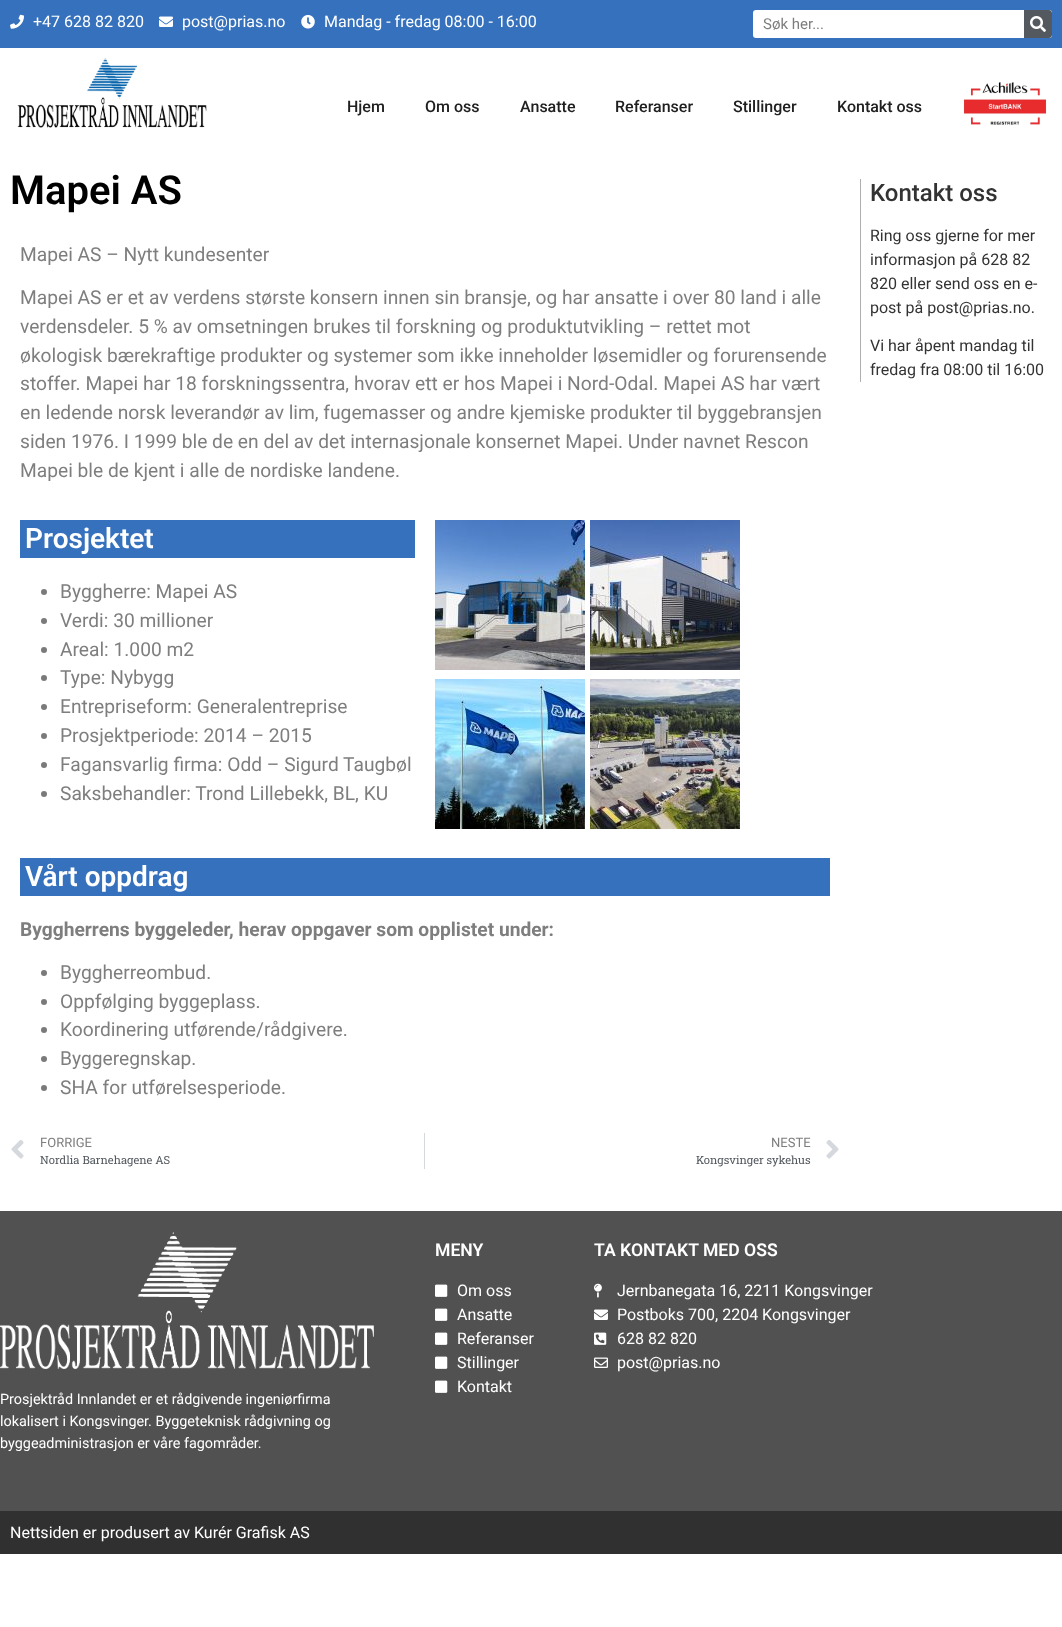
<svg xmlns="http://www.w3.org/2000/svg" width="1062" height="1627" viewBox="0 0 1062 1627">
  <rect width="100%" height="100%" fill="rgb(255,255,255)"/>
  <rect x="0" y="0" width="1062" height="48" fill="rgb(53,113,188)"/>
  <image x="10" y="14" width="14" height="15" href="pic1.png"/>
  <text x="33" y="27" font-family="Roboto" font-size="16" fill="rgb(255,255,255)">+47 628 82 820</text>
  <image x="159" y="16" width="14" height="11" href="pic2.png"/>
  <text x="182" y="27" font-family="Roboto" font-size="16" fill="rgb(255,255,255)">post@prias.no</text>
  <image x="301" y="15" width="14" height="14" href="pic3.png"/>
  <text x="324" y="27" font-family="Roboto" font-size="16" fill="rgb(255,255,255)">Mandag - fredag 08:00 - 16:00</text>
  <rect x="753" y="10" width="299" height="28" rx="3" fill="rgb(255,255,255)"/>
  <text x="763" y="29" font-family="Roboto" font-size="15" fill="rgb(126,126,126)">Søk her...</text>
  <path d="M1024 10H1049C1050.5 10 1052 11.5 1052 13V35C1052 36.5 1050.5 38 1049 38H1024Z" fill="rgb(84,89,95)"/>
  <image x="1030" y="16" width="16" height="16" href="pic4.png"/>
  <image x="17" y="58" width="190" height="70" href="pic5.png"/>
  <g font-family="Roboto" font-size="16" font-weight="500" fill="rgb(32,32,32)">
    <text x="347" y="112">Hjem</text>
    <text x="425" y="112">Om oss</text>
    <text x="520" y="112">Ansatte</text>
    <text x="615" y="112">Referanser</text>
    <text x="733" y="112">Stillinger</text>
    <text x="837" y="112">Kontakt oss</text>
  </g>
  <image x="963" y="82" width="84" height="43" href="pic6.png"/>
  <text x="10" y="204" font-family="Roboto" font-size="40" font-weight="600" fill="rgb(0,0,0)">Mapei AS</text>
  <g font-family="Roboto" font-size="19.2" fill="rgb(126,126,126)">
    <text x="20" y="261">Mapei AS – Nytt kundesenter</text>
    <text>
      <tspan x="20" y="304">Mapei AS er et av verdens største konsern innen sin bransje, og har ansatte i over 80 land i alle</tspan>
      <tspan x="20" y="333">verdensdeler. 5 % av omsetningen brukes til forskning og produktutvikling – rettet mot</tspan>
      <tspan x="20" y="362">økologisk bærekraftige produkter og systemer som ikke inneholder løsemidler og forurensende</tspan>
      <tspan x="20" y="390">stoffer. Mapei har 18 forskningssentra, hvorav ett er hos Mapei i Nord-Odal. Mapei AS har vært</tspan>
      <tspan x="20" y="419">en ledende norsk leverandør av lim, fugemasser og andre kjemiske produkter til byggebransjen</tspan>
      <tspan x="20" y="448">siden 1976. I 1999 ble de en del av det internasjonale konsernet Mapei. Under navnet Rescon</tspan>
      <tspan x="20" y="477">Mapei ble de kjent i alle de nordiske landene.</tspan>
    </text>
  </g>
  <rect x="20" y="520" width="395" height="38" fill="rgb(53,113,188)"/>
  <text x="25" y="548" font-family="Roboto" font-size="28" font-weight="600" fill="rgb(255,255,255)">Prosjektet</text>
  <circle cx="44" cy="592" r="3" fill="rgb(122,122,122)"/>
  <text x="60" y="598" font-family="Roboto" font-size="19.2" fill="rgb(126,126,126)">Byggherre: Mapei AS</text>
  <circle cx="44" cy="621" r="3" fill="rgb(122,122,122)"/>
  <text x="60" y="627" font-family="Roboto" font-size="19.2" fill="rgb(126,126,126)">Verdi: 30 millioner</text>
  <circle cx="44" cy="650" r="3" fill="rgb(122,122,122)"/>
  <text x="60" y="656" font-family="Roboto" font-size="19.2" fill="rgb(126,126,126)">Areal: 1.000 m2</text>
  <circle cx="44" cy="678" r="3" fill="rgb(122,122,122)"/>
  <text x="60" y="684" font-family="Roboto" font-size="19.2" fill="rgb(126,126,126)">Type: Nybygg</text>
  <circle cx="44" cy="707" r="3" fill="rgb(122,122,122)"/>
  <text x="60" y="713" font-family="Roboto" font-size="19.2" fill="rgb(126,126,126)">Entrepriseform: Generalentreprise</text>
  <circle cx="44" cy="736" r="3" fill="rgb(122,122,122)"/>
  <text x="60" y="742" font-family="Roboto" font-size="19.2" fill="rgb(126,126,126)">Prosjektperiode: 2014 – 2015</text>
  <circle cx="44" cy="765" r="3" fill="rgb(122,122,122)"/>
  <text x="60" y="771" font-family="Roboto" font-size="19.2" fill="rgb(126,126,126)">Fagansvarlig firma: Odd – Sigurd Taugbøl</text>
  <circle cx="44" cy="794" r="3" fill="rgb(122,122,122)"/>
  <text x="60" y="800" font-family="Roboto" font-size="19.2" fill="rgb(126,126,126)">Saksbehandler: Trond Lillebekk, BL, KU</text>
  <image x="435" y="520" width="150" height="150" href="pic7.png"/>
  <image x="590" y="520" width="150" height="150" href="pic8.png"/>
  <image x="435" y="679" width="150" height="150" href="pic9.png"/>
  <image x="590" y="679" width="150" height="150" href="pic10.png"/>
  <rect x="20" y="858" width="810" height="38" fill="rgb(53,113,188)"/>
  <text x="25" y="886" font-family="Roboto" font-size="28" font-weight="600" fill="rgb(255,255,255)">Vårt oppdrag</text>
  <text x="20" y="936" font-family="Roboto" font-size="19.2" font-weight="bold" fill="rgb(126,126,126)">Byggherrens byggeleder, herav oppgaver som opplistet under:</text>
  <circle cx="44" cy="973" r="3" fill="rgb(122,122,122)"/>
  <text x="60" y="979" font-family="Roboto" font-size="19.2" fill="rgb(126,126,126)">Byggherreombud.</text>
  <circle cx="44" cy="1002" r="3" fill="rgb(122,122,122)"/>
  <text x="60" y="1008" font-family="Roboto" font-size="19.2" fill="rgb(126,126,126)">Oppfølging byggeplass.</text>
  <circle cx="44" cy="1030" r="3" fill="rgb(122,122,122)"/>
  <text x="60" y="1036" font-family="Roboto" font-size="19.2" fill="rgb(126,126,126)">Koordinering utførende/rådgivere.</text>
  <circle cx="44" cy="1059" r="3" fill="rgb(122,122,122)"/>
  <text x="60" y="1065" font-family="Roboto" font-size="19.2" fill="rgb(126,126,126)">Byggeregnskap.</text>
  <circle cx="44" cy="1088" r="3" fill="rgb(122,122,122)"/>
  <text x="60" y="1094" font-family="Roboto" font-size="19.2" fill="rgb(126,126,126)">SHA for utførelsesperiode.</text>
  <image x="11" y="1140" width="13" height="19" href="pic11.png"/>
  <text x="40" y="1147" font-family="Roboto" font-size="13" fill="rgb(126,126,126)">FORRIGE</text>
  <text x="40" y="1164" font-family="Roboto Slab" font-size="11.25" fill="rgb(84,89,95)">Nordlia Barnehagene AS</text>
  <rect x="424" y="1133" width="1" height="36" fill="rgb(213,216,220)"/>
  <text x="771" y="1147" font-family="Roboto" font-size="13" fill="rgb(126,126,126)">NESTE</text>
  <text x="696" y="1164" font-family="Roboto Slab" font-size="11.25" fill="rgb(84,89,95)">Kongsvinger sykehus</text>
  <image x="826" y="1140" width="13" height="19" href="pic12.png"/>
  <rect x="860" y="179" width="1" height="203" fill="rgb(174,174,174)"/>
  <text x="870" y="201" font-family="Roboto" font-size="24" font-weight="500" fill="rgb(51,51,51)">Kontakt oss</text>
  <g font-family="Roboto" font-size="16" fill="rgb(51,51,51)">
    <text>
      <tspan x="870" y="241">Ring oss gjerne for mer</tspan>
      <tspan x="870" y="265">informasjon på 628 82</tspan>
      <tspan x="870" y="289">820 eller send oss en e-</tspan>
      <tspan x="870" y="313">post på post@prias.no.</tspan>
    </text>
    <text>
      <tspan x="870" y="351">Vi har åpent mandag til</tspan>
      <tspan x="870" y="375">fredag fra 08:00 til 16:00</tspan>
    </text>
  </g>
  <rect x="0" y="1211" width="1062" height="300" fill="rgb(81,81,81)"/>
  <text x="435" y="1256" font-family="Roboto" font-size="17.6" font-weight="600" fill="rgb(255,255,255)">MENY</text>
  <image x="435" y="1284" width="13" height="13" href="pic13.png"/>
  <text x="457" y="1296" font-family="Roboto" font-size="16" fill="rgb(255,255,255)">Om oss</text>
  <image x="435" y="1308" width="13" height="13" href="pic13.png"/>
  <text x="457" y="1320" font-family="Roboto" font-size="16" fill="rgb(255,255,255)">Ansatte</text>
  <image x="435" y="1332" width="13" height="13" href="pic13.png"/>
  <text x="457" y="1344" font-family="Roboto" font-size="16" fill="rgb(255,255,255)">Referanser</text>
  <image x="435" y="1356" width="13" height="13" href="pic13.png"/>
  <text x="457" y="1368" font-family="Roboto" font-size="16" fill="rgb(255,255,255)">Stillinger</text>
  <image x="435" y="1380" width="13" height="13" href="pic13.png"/>
  <text x="457" y="1392" font-family="Roboto" font-size="16" fill="rgb(255,255,255)">Kontakt</text>
  <text x="594" y="1256" font-family="Roboto" font-size="17.6" font-weight="600" fill="rgb(255,255,255)">TA KONTAKT MED OSS</text>
  <image x="594" y="1283" width="8" height="15" href="pic14.png"/>
  <text x="617" y="1296" font-family="Roboto" font-size="16" fill="rgb(255,255,255)">Jernbanegata 16, 2211 Kongsvinger</text>
  <image x="594" y="1309" width="14" height="11" href="pic15.png"/>
  <text x="617" y="1320" font-family="Roboto" font-size="16" fill="rgb(255,255,255)">Postboks 700, 2204 Kongsvinger</text>
  <image x="594" y="1332" width="13" height="13" href="pic16.png"/>
  <text x="617" y="1344" font-family="Roboto" font-size="16" fill="rgb(255,255,255)">628 82 820</text>
  <image x="594" y="1357" width="14" height="11" href="pic17.png"/>
  <text x="617" y="1368" font-family="Roboto" font-size="16" fill="rgb(255,255,255)">post@prias.no</text>
  <image x="0" y="1232" width="374" height="137" href="pic18.png"/>
  <g font-family="Roboto" font-size="14.4" fill="rgb(255,255,255)">
    <text>
      <tspan x="0" y="1404">Prosjektråd Innlandet er et rådgivende ingeniørfirma</tspan>
      <tspan x="0" y="1426">lokalisert i Kongsvinger. Byggeteknisk rådgivning og</tspan>
      <tspan x="0" y="1448">byggeadministrasjon er våre fagområder.</tspan>
    </text>
  </g>
  <rect x="0" y="1511" width="1062" height="43" fill="rgb(48,48,48)"/>
  <text x="10" y="1538" font-family="Roboto" font-size="16" fill="rgb(255,255,255)">Nettsiden er produsert av Kurér Grafisk AS</text>
</svg>
